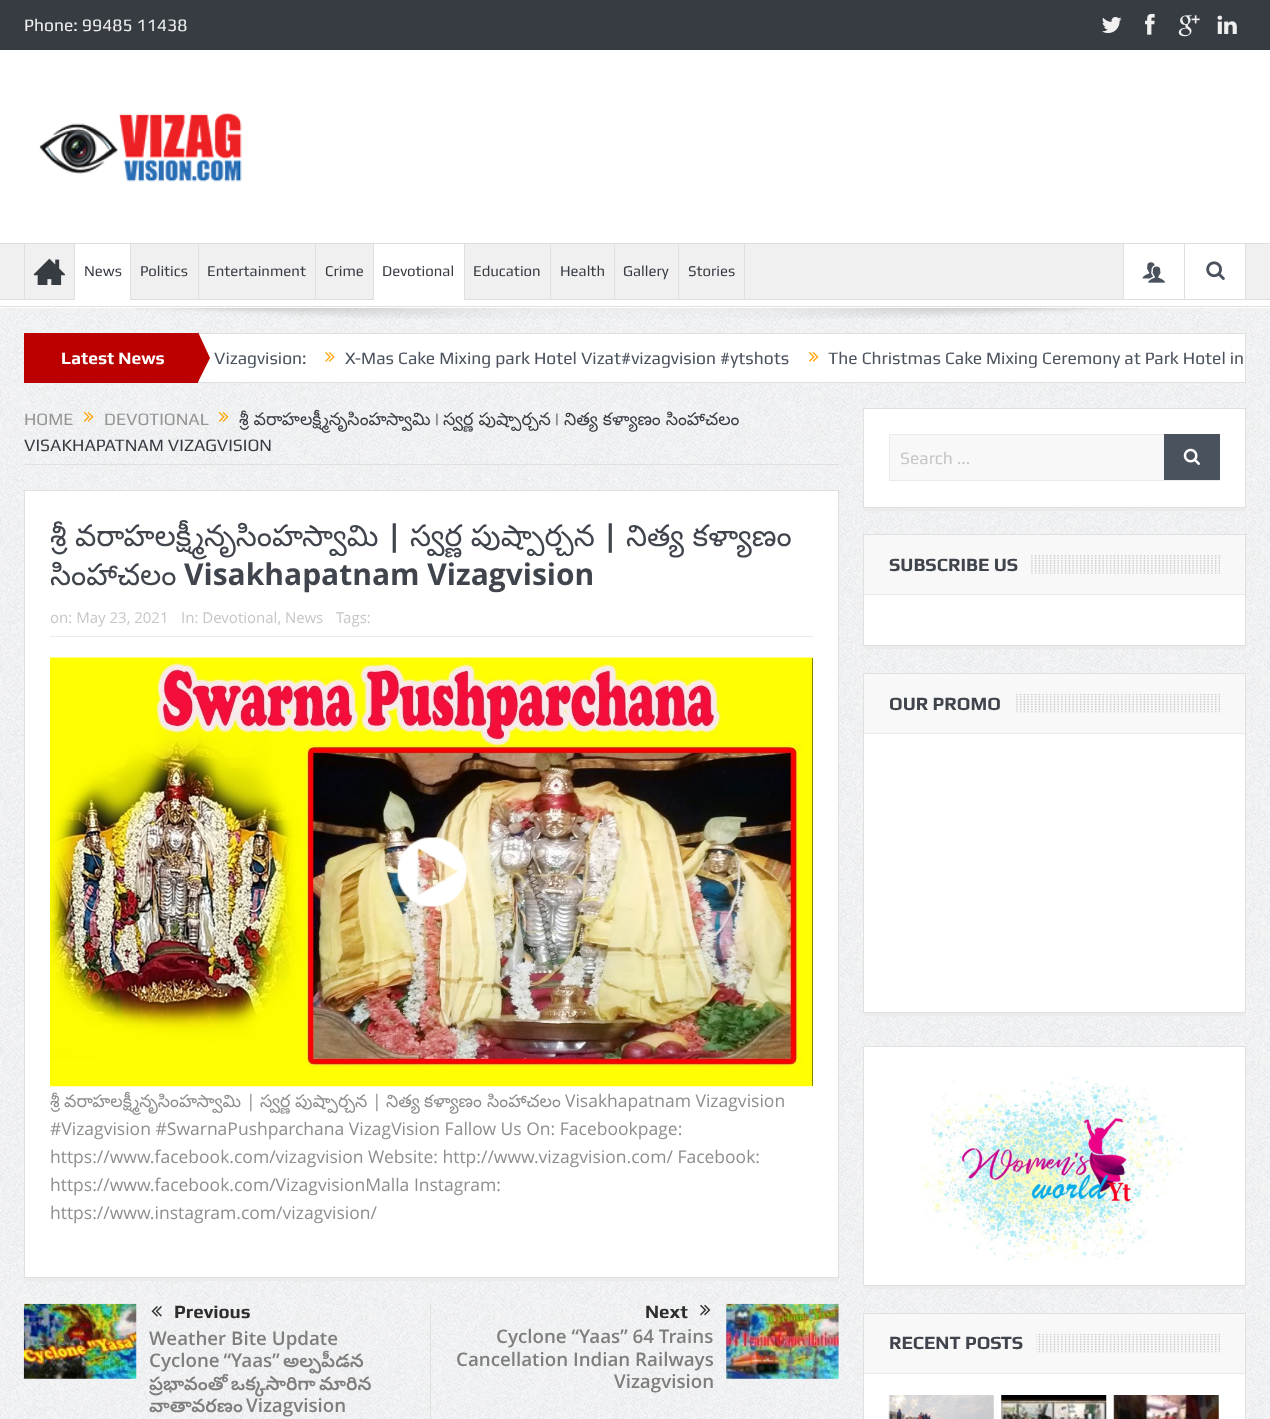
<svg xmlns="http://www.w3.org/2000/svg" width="1270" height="1419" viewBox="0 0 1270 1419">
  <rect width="100%" height="100%" fill="rgb(255,255,255)"/>
  <image x="0" y="308" width="1270" height="1111" href="pic1.png"/>
  <rect x="0" y="0" width="1270" height="50" fill="rgb(55,60,67)"/>
  <text x="24" y="31" font-family="Play" font-size="17.5" fill="rgb(240,240,240)">Phone: 99485 11438</text>
  <image x="1102" y="17" width="20" height="16" href="pic2.png"/>
  <image x="1145" y="13" width="10" height="22" href="pic3.png"/>
  <image x="1178" y="15" width="22" height="22" href="pic4.png"/>
  <image x="1217" y="15" width="20" height="19" href="pic5.png"/>
  <image x="39" y="113" width="203" height="69" href="pic6.png"/>
  <rect x="0" y="243" width="1270" height="1" fill="rgb(223,223,223)"/>
  <rect x="0" y="306" width="1270" height="1" fill="rgb(223,223,223)"/>
  <rect x="0" y="244" width="1270" height="55" fill="rgb(240,240,240)"/>
  <rect x="0" y="299" width="1270" height="1" fill="rgb(223,223,223)"/>
  <rect x="24" y="244" width="1" height="55" fill="rgb(223,223,223)"/>
  <image x="33" y="258" width="32" height="27" href="pic7.png"/>
  <rect x="74" y="244" width="1" height="55" fill="rgb(223,223,223)"/>
  <rect x="75" y="244" width="55" height="56" fill="rgb(255,255,255)"/>
  <text x="84" y="276" font-family="Play" font-size="15" fill="rgb(55,60,67)">News</text>
  <rect x="130" y="244" width="1" height="55" fill="rgb(223,223,223)"/>
  <text x="140" y="276" font-family="Play" font-size="15" fill="rgb(55,60,67)">Politics</text>
  <rect x="198" y="244" width="1" height="55" fill="rgb(223,223,223)"/>
  <text x="207" y="276" font-family="Play" font-size="15" fill="rgb(55,60,67)">Entertainment</text>
  <rect x="315" y="244" width="1" height="55" fill="rgb(223,223,223)"/>
  <text x="325" y="276" font-family="Play" font-size="15" fill="rgb(55,60,67)">Crime</text>
  <rect x="373" y="244" width="1" height="55" fill="rgb(223,223,223)"/>
  <rect x="374" y="244" width="90" height="56" fill="rgb(255,255,255)"/>
  <text x="382" y="276" font-family="Play" font-size="15" fill="rgb(55,60,67)">Devotional</text>
  <rect x="464" y="244" width="1" height="55" fill="rgb(223,223,223)"/>
  <text x="473" y="276" font-family="Play" font-size="15" fill="rgb(55,60,67)">Education</text>
  <rect x="550" y="244" width="1" height="55" fill="rgb(223,223,223)"/>
  <text x="560" y="276" font-family="Play" font-size="15" fill="rgb(55,60,67)">Health</text>
  <rect x="614" y="244" width="1" height="55" fill="rgb(223,223,223)"/>
  <text x="623" y="276" font-family="Play" font-size="15" fill="rgb(55,60,67)">Gallery</text>
  <rect x="744" y="244" width="1" height="55" fill="rgb(223,223,223)"/>
  <rect x="678" y="244" width="1" height="55" fill="rgb(223,223,223)"/>
  <text x="688" y="276" font-family="Play" font-size="15" fill="rgb(55,60,67)">Stories</text>
  <rect x="1124" y="244" width="60" height="55" fill="rgb(255,255,255)"/>
  <rect x="1184" y="244" width="1" height="55" fill="rgb(223,223,223)"/>
  <rect x="1123" y="244" width="1" height="55" fill="rgb(223,223,223)"/>
  <image x="1142" y="262" width="23" height="21" href="pic8.png"/>
  <rect x="1185" y="244" width="60" height="55" fill="rgb(255,255,255)"/>
  <rect x="1245" y="244" width="1" height="55" fill="rgb(223,223,223)"/>
  <image x="1206" y="261" width="19" height="19" href="pic9.png"/>
  <image x="136" y="308" width="1002" height="11" href="pic10.png"/>
  <rect x="24" y="333" width="174" height="50" fill="rgb(187,0,0)"/>
  <text x="61" y="364" font-family="Play" font-size="17.5" font-weight="bold" fill="rgb(255,255,255)">Latest News</text>
  <rect x="198.5" y="333.5" width="1047" height="49" fill="rgb(255,255,255)" stroke="rgb(223,223,223)"/>
  <path d="M198 382V332L210 358Z" fill="rgb(187,0,0)"/>
  <text x="214" y="364" font-family="Play" font-size="17.5" fill="rgb(74,82,93)">Vizagvision:</text>
  <image x="325" y="352" width="10" height="10" href="pic11.png"/>
  <text x="345" y="364" font-family="Play" font-size="17.5" fill="rgb(74,82,93)">X-Mas Cake Mixing park Hotel Vizat#vizagvision #ytshots</text>
  <image x="808" y="352" width="11" height="10" href="pic12.png"/>
  <text x="828" y="364" font-family="Play" font-size="17.5" fill="rgb(74,82,93)">The Christmas Cake Mixing Ceremony at Park Hotel in</text>
  <rect x="24" y="464" width="815" height="1" fill="rgb(224,224,224)"/>
  <text x="24" y="425" font-family="Play" font-size="17.5" fill="rgb(149,149,149)">HOME</text>
  <image x="83" y="412" width="11" height="10" href="pic13.png"/>
  <text x="104" y="425" font-family="Play" font-size="17.5" fill="rgb(149,149,149)">DEVOTIONAL</text>
  <image x="218" y="412" width="11" height="10" href="pic14.png"/>
  <text x="239" y="425" font-family="Noto Sans Telugu" font-size="17.5" fill="rgb(55,60,67)">శ్రీ వరాహలక్ష్మీనృసింహస్వామి</text>
  <text x="434" y="425" font-family="Play" font-size="17.5" fill="rgb(55,60,67)">|</text>
  <text x="443" y="425" font-family="Noto Sans Telugu" font-size="17.5" fill="rgb(55,60,67)">స్వర్ణ పుష్పార్చన</text>
  <text x="554" y="425" font-family="Play" font-size="17.5" fill="rgb(55,60,67)">|</text>
  <text x="564" y="425" font-family="Noto Sans Telugu" font-size="17.5" fill="rgb(55,60,67)">నిత్య కళ్యాణం సింహాచలం</text>
  <text x="24" y="451" font-family="Play" font-size="17.5" fill="rgb(55,60,67)">VISAKHAPATNAM VIZAGVISION</text>
  <rect x="24.5" y="490.5" width="814" height="787" fill="rgb(255,255,255)" stroke="rgb(224,224,224)"/>
  <text x="50" y="546" font-family="Noto Sans Telugu" font-size="30" fill="rgb(64,69,77)">శ్రీ వరాహలక్ష్మీనృసింహస్వామి</text>
  <text x="386" y="546" font-family="Open Sans" font-size="30" font-weight="bold" fill="rgb(64,69,77)">|</text>
  <text x="410" y="546" font-family="Noto Sans Telugu" font-size="30" fill="rgb(64,69,77)">స్వర్ణ పుష్పార్చన</text>
  <text x="602" y="546" font-family="Open Sans" font-size="30" font-weight="bold" fill="rgb(64,69,77)">|</text>
  <g font-family="Noto Sans Telugu" font-size="30" fill="rgb(64,69,77)">
    <text x="626" y="546">నిత్య కళ్యాణం</text>
    <text x="50" y="585">సింహాచలం</text>
  </g>
  <text x="184" y="585" font-family="Open Sans" font-size="30" font-weight="bold" fill="rgb(64,69,77)">Visakhapatnam Vizagvision</text>
  <rect x="50" y="636" width="763" height="1" fill="rgb(234,234,234)"/>
  <g font-family="Open Sans" font-size="15" fill="rgb(198,198,198)">
    <text x="50" y="623">on: May 23, 2021</text>
    <text x="181" y="623">In: Devotional, News</text>
    <text x="336" y="623">Tags:</text>
  </g>
  <rect x="812" y="658" width="1" height="428" fill="rgb(0,0,0)"/>
  <image x="50" y="657" width="763" height="430" href="pic15.png"/>
  <image x="397" y="837" width="71" height="71" href="pic16.png"/>
  <g font-family="Noto Sans Telugu" font-size="17.5" fill="rgb(142,142,142)">
    <text x="50" y="1107">శ్రీ</text>
    <text x="64" y="1107">వరాహలక్ష్మీనృసింహస్వామి</text>
  </g>
  <text x="246" y="1107" font-family="Open Sans" font-size="17.5" fill="rgb(142,142,142)">|</text>
  <g font-family="Noto Sans Telugu" font-size="17.5" fill="rgb(142,142,142)">
    <text x="260" y="1107">స్వర్ణ</text>
    <text x="295" y="1107">పుష్పార్చన</text>
  </g>
  <text x="372" y="1107" font-family="Open Sans" font-size="17.5" fill="rgb(142,142,142)">|</text>
  <g font-family="Noto Sans Telugu" font-size="17.5" fill="rgb(142,142,142)">
    <text x="386" y="1107">నిత్య</text>
    <text x="424" y="1107">కళ్యాణం</text>
    <text x="487" y="1107">సింహాచలం</text>
  </g>
  <g font-family="Open Sans" font-size="17.5" fill="rgb(142,142,142)">
    <text x="565" y="1107">Visakhapatnam Vizagvision</text>
    <text>
      <tspan x="50" y="1135">#Vizagvision #SwarnaPushparchana VizagVision Fallow Us On: Facebookpage:</tspan>
      <tspan x="50" y="1163">https://www.facebook.com/vizagvision Website: http://www.vizagvision.com/ Facebook:</tspan>
      <tspan x="50" y="1191">https://www.facebook.com/VizagvisionMalla Instagram:</tspan>
      <tspan x="50" y="1219">https://www.instagram.com/vizagvision/</tspan>
    </text>
  </g>
  <rect x="25" y="1278" width="813" height="3" fill="rgb(235,235,235)"/>
  <image x="23" y="1303" width="114" height="76" href="pic17.png"/>
  <image x="151" y="1306" width="11" height="11" href="pic18.png"/>
  <text x="174" y="1318" font-family="Play" font-size="18.75" font-weight="bold" fill="rgb(45,45,45)">Previous</text>
  <g font-family="Open Sans" font-size="18.75" font-weight="600" fill="rgb(126,126,126)">
    <text>
      <tspan x="149" y="1345">Weather Bite Update</tspan>
      <tspan x="149" y="1367" word-spacing="-1">Cyclone “Yaas”</tspan>
    </text>
  </g>
  <g font-family="Noto Sans Telugu" font-size="18.75" font-weight="600" fill="rgb(126,126,126)">
    <text x="283" y="1367">అల్పపీడన</text>
    <text>
      <tspan x="149" y="1390" word-spacing="-2">ప్రభావంతో ఒక్కసారిగా మారిన</tspan>
      <tspan x="149" y="1412">వాతావరణం</tspan>
    </text>
  </g>
  <text x="246" y="1412" font-family="Open Sans" font-size="18.75" font-weight="600" fill="rgb(126,126,126)">Vizagvision</text>
  <rect x="430" y="1304" width="1" height="115" fill="rgb(224,224,224)"/>
  <text x="645" y="1318" font-family="Play" font-size="18.75" font-weight="bold" fill="rgb(45,45,45)">Next</text>
  <image x="700" y="1304" width="11" height="12" href="pic19.png"/>
  <g font-family="Open Sans" font-size="18.75" font-weight="600" fill="rgb(126,126,126)">
    <text x="496" y="1343">Cyclone “Yaas” 64 Trains</text>
    <text x="456" y="1366">Cancellation Indian Railways</text>
    <text x="614" y="1388">Vizagvision</text>
  </g>
  <image x="726" y="1303" width="113" height="76" href="pic20.png"/>
  <rect x="863.5" y="408.5" width="382" height="99" fill="rgb(255,255,255)" stroke="rgb(224,224,224)"/>
  <rect x="890" y="435" width="274" height="45" fill="rgb(248,248,248)"/>
  <rect x="889.5" y="434.5" width="330" height="46" fill="none" stroke="rgb(234,234,234)"/>
  <text x="900" y="464" font-family="Play" font-size="17.5" fill="rgb(198,198,198)">Search ...</text>
  <rect x="1164" y="434" width="56" height="46" fill="rgb(74,82,93)"/>
  <image x="1183" y="448" width="17" height="17" href="pic21.png"/>
  <rect x="864" y="508" width="381" height="3" fill="rgb(235,235,235)"/>
  <rect x="864" y="595" width="381" height="50" fill="rgb(255,255,255)"/>
  <rect x="863.5" y="534.5" width="382" height="111" fill="none" stroke="rgb(224,224,224)"/>
  <rect x="864" y="535" width="381" height="59" fill="rgb(248,248,248)"/>
  <rect x="864" y="594" width="381" height="1" fill="rgb(234,234,234)"/>
  <image x="1031" y="555" width="189" height="19" href="pic22.png"/>
  <text x="889" y="571" font-family="Play" font-size="18.75" font-weight="bold" fill="rgb(64,69,77)">SUBSCRIBE US</text>
  <rect x="864" y="646" width="381" height="3" fill="rgb(235,235,235)"/>
  <rect x="864" y="734" width="381" height="278" fill="rgb(255,255,255)"/>
  <rect x="863.5" y="673.5" width="382" height="339" fill="none" stroke="rgb(224,224,224)"/>
  <rect x="864" y="674" width="381" height="59" fill="rgb(248,248,248)"/>
  <rect x="864" y="733" width="381" height="1" fill="rgb(234,234,234)"/>
  <image x="1016" y="694" width="204" height="19" href="pic23.png"/>
  <text x="889" y="710" font-family="Play" font-size="18.75" font-weight="bold" fill="rgb(64,69,77)">OUR PROMO</text>
  <rect x="864" y="1013" width="381" height="3" fill="rgb(235,235,235)"/>
  <rect x="863.5" y="1046.5" width="382" height="239" fill="rgb(255,255,255)" stroke="rgb(224,224,224)"/>
  <image x="922" y="1076" width="265" height="184" href="pic24.png"/>
  <rect x="864" y="1286" width="381" height="3" fill="rgb(235,235,235)"/>
  <rect x="864" y="1374" width="381" height="45" fill="rgb(255,255,255)"/>
  <rect x="863.5" y="1313.5" width="382" height="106" fill="none" stroke="rgb(224,224,224)"/>
  <rect x="864" y="1314" width="381" height="59" fill="rgb(248,248,248)"/>
  <rect x="864" y="1373" width="381" height="1" fill="rgb(234,234,234)"/>
  <image x="1036" y="1334" width="184" height="19" href="pic25.png"/>
  <text x="889" y="1349" font-family="Play" font-size="18.75" font-weight="bold" fill="rgb(64,69,77)">RECENT POSTS</text>
  <image x="888" y="1395" width="106" height="24" href="pic26.png"/>
  <image x="1001" y="1395" width="106" height="24" href="pic27.png"/>
  <image x="1113" y="1395" width="106" height="24" href="pic28.png"/>
</svg>
